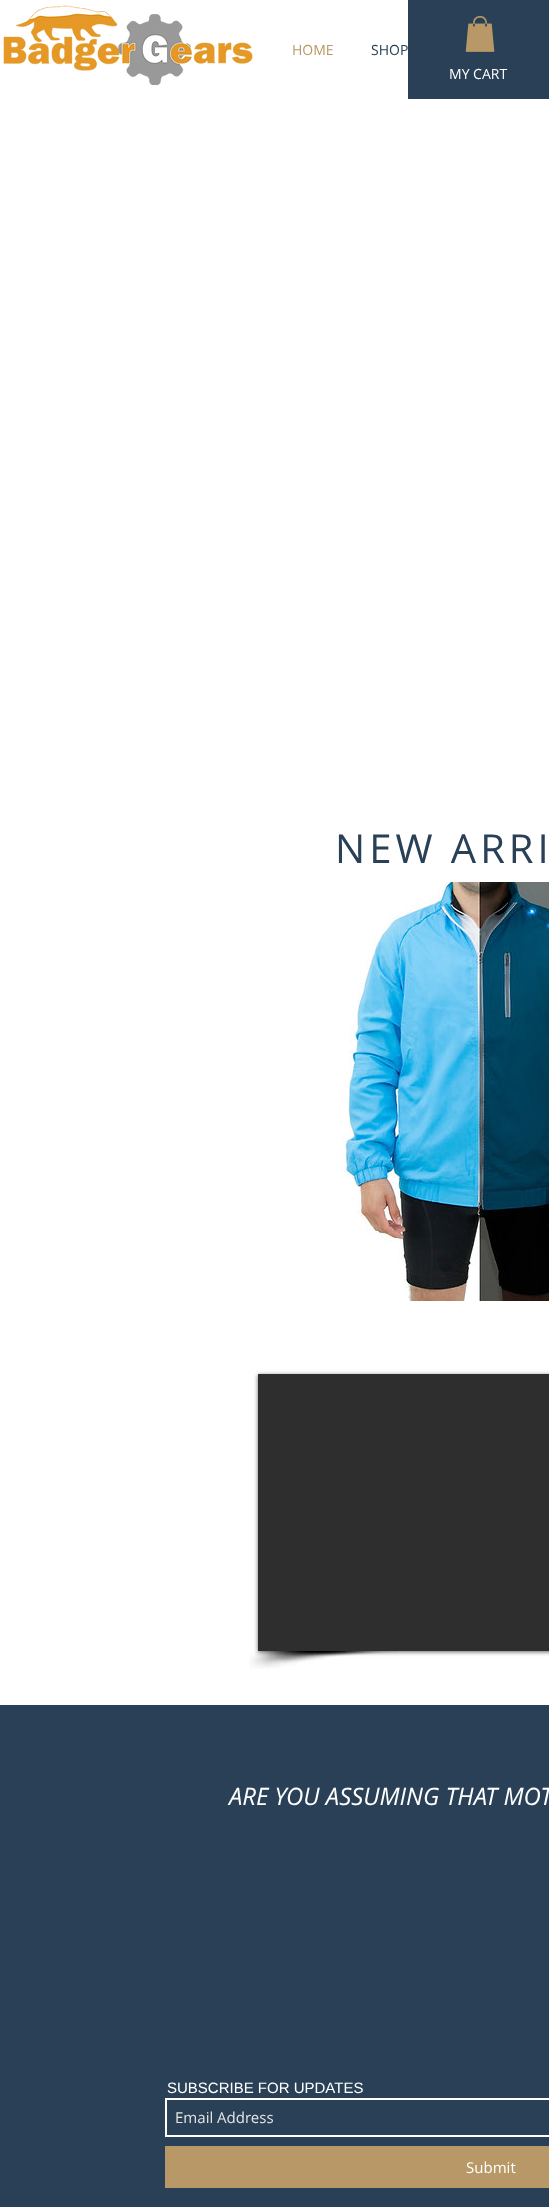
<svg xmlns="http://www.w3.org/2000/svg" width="549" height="2207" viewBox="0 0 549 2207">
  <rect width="100%" height="100%" fill="rgb(255,255,255)"/>
  <image x="3" y="5" width="250" height="80" href="pic1.png"/>
  <text x="292" y="55" font-family="Open Sans" font-size="14" fill="rgb(185,152,103)">HOME</text>
  <text x="371" y="55" font-family="Open Sans" font-size="14" fill="rgb(41,64,87)">SHOP</text>
  <rect x="408" y="0" width="141" height="99" fill="rgb(41,64,87)"/>
  <image x="465" y="16" width="30" height="36" href="pic2.png"/>
  <text x="449" y="79" font-family="Open Sans" font-size="14" fill="rgb(255,255,255)">MY CART</text>
  <text x="335" y="863" font-family="Open Sans" font-size="40" letter-spacing="4" fill="rgb(41,64,87)">NEW ARRI</text>
  <image x="341" y="882" width="208" height="419" href="pic3.png"/>
  <rect x="258" y="1375" width="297" height="277" fill="rgba(0,0,0,0.6)" filter="blur(2px)"/>
  <rect x="258" y="1374" width="291" height="277" fill="rgb(47,46,46)"/>
  <image x="249" y="1651" width="149" height="18" href="pic4.png"/>
  <rect x="0" y="1705" width="549" height="502" fill="rgb(41,64,87)"/>
  <text x="229" y="1805" font-family="Open Sans" font-size="24" font-style="italic" fill="rgb(255,255,255)">ARE YOU ASSUMING THAT MOT</text>
  <text x="167" y="2093" font-family="Liberation Sans" font-size="15" fill="rgb(255,255,255)">SUBSCRIBE FOR UPDATES</text>
  <rect x="166" y="2099" width="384" height="37" fill="none" stroke="rgb(255,255,255)" stroke-width="2"/>
  <text x="175" y="2123" font-family="Open Sans" font-size="15" fill="rgb(229,229,229)">Email Address</text>
  <rect x="165" y="2146" width="384" height="42" fill="rgb(185,152,103)"/>
  <text x="466" y="2173" font-family="Open Sans" font-size="15" fill="rgb(255,255,255)">Submit</text>
</svg>
